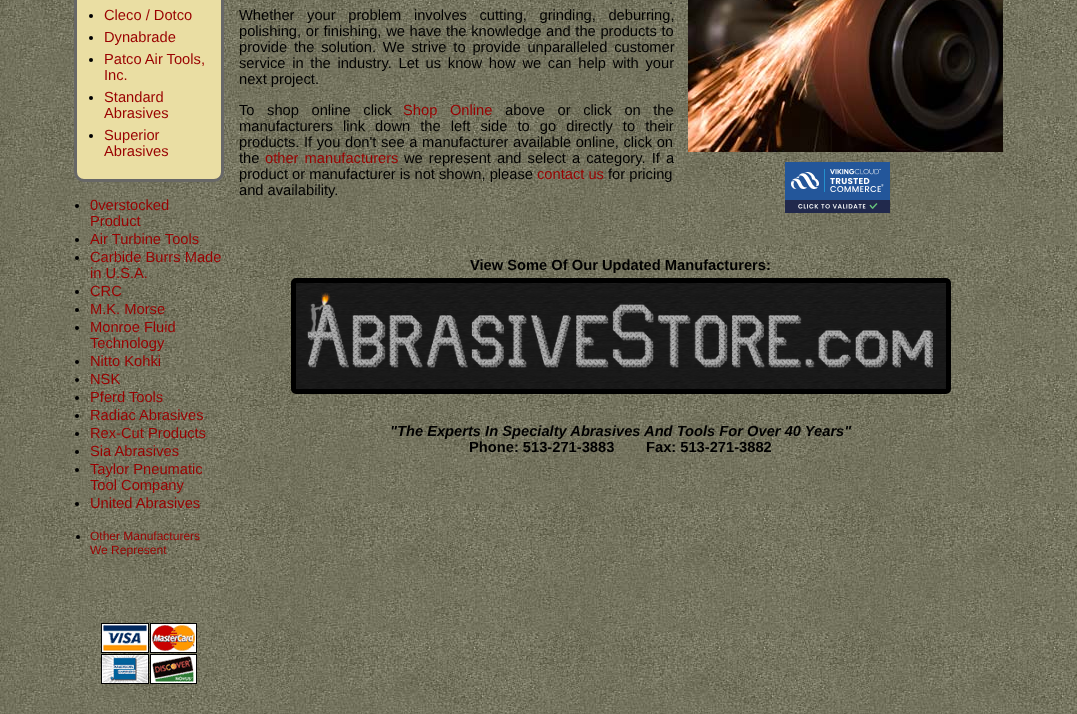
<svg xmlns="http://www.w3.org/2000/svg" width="1077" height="714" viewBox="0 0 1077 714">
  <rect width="100%" height="100%" fill="rgb(255,255,255)"/>
  <image x="0" y="0" width="1077" height="714" href="pic1.png"/>
  <rect x="75.5" y="-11.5" width="147" height="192" rx="8.5" fill="rgb(234,222,163)" stroke="rgb(103,103,103)" stroke-width="3"/>
  <circle cx="91" cy="16" r="2" fill="rgb(0,0,0)"/>
  <text x="104" y="20" font-family="Liberation Sans" font-size="14.7" fill="rgb(153,0,0)">Cleco / Dotco</text>
  <circle cx="91" cy="38" r="2" fill="rgb(0,0,0)"/>
  <text x="104" y="42" font-family="Liberation Sans" font-size="14.7" fill="rgb(153,0,0)">Dynabrade</text>
  <circle cx="91" cy="60" r="2" fill="rgb(0,0,0)"/>
  <g font-family="Liberation Sans" font-size="14.7" fill="rgb(153,0,0)">
    <text>
      <tspan x="104" y="64">Patco Air Tools,</tspan>
      <tspan x="104" y="80">Inc.</tspan>
    </text>
  </g>
  <circle cx="91" cy="98" r="2" fill="rgb(0,0,0)"/>
  <g font-family="Liberation Sans" font-size="14.7" fill="rgb(153,0,0)">
    <text>
      <tspan x="104" y="102">Standard</tspan>
      <tspan x="104" y="118">Abrasives</tspan>
    </text>
  </g>
  <circle cx="91" cy="136" r="2" fill="rgb(0,0,0)"/>
  <g font-family="Liberation Sans" font-size="14.7" fill="rgb(153,0,0)">
    <text>
      <tspan x="104" y="140">Superior</tspan>
      <tspan x="104" y="156">Abrasives</tspan>
    </text>
  </g>
  <circle cx="77" cy="206" r="2" fill="rgb(0,0,0)"/>
  <g font-family="Liberation Sans" font-size="14.7" fill="rgb(153,0,0)">
    <text>
      <tspan x="90" y="210">0verstocked</tspan>
      <tspan x="90" y="226">Product</tspan>
    </text>
  </g>
  <circle cx="77" cy="240" r="2" fill="rgb(0,0,0)"/>
  <text x="90" y="244" font-family="Liberation Sans" font-size="14.7" fill="rgb(153,0,0)">Air Turbine Tools</text>
  <circle cx="77" cy="258" r="2" fill="rgb(0,0,0)"/>
  <g font-family="Liberation Sans" font-size="14.7" fill="rgb(153,0,0)">
    <text>
      <tspan x="90" y="262">Carbide Burrs Made</tspan>
      <tspan x="90" y="278">in U.S.A.</tspan>
    </text>
  </g>
  <circle cx="77" cy="292" r="2" fill="rgb(0,0,0)"/>
  <text x="90" y="296" font-family="Liberation Sans" font-size="14.7" fill="rgb(153,0,0)">CRC</text>
  <circle cx="77" cy="310" r="2" fill="rgb(0,0,0)"/>
  <text x="90" y="314" font-family="Liberation Sans" font-size="14.7" fill="rgb(153,0,0)">M.K. Morse</text>
  <circle cx="77" cy="328" r="2" fill="rgb(0,0,0)"/>
  <g font-family="Liberation Sans" font-size="14.7" fill="rgb(153,0,0)">
    <text>
      <tspan x="90" y="332">Monroe Fluid</tspan>
      <tspan x="90" y="348">Technology</tspan>
    </text>
  </g>
  <circle cx="77" cy="362" r="2" fill="rgb(0,0,0)"/>
  <text x="90" y="366" font-family="Liberation Sans" font-size="14.7" fill="rgb(153,0,0)">Nitto Kohki</text>
  <circle cx="77" cy="380" r="2" fill="rgb(0,0,0)"/>
  <text x="90" y="384" font-family="Liberation Sans" font-size="14.7" fill="rgb(153,0,0)">NSK</text>
  <circle cx="77" cy="398" r="2" fill="rgb(0,0,0)"/>
  <text x="90" y="402" font-family="Liberation Sans" font-size="14.7" fill="rgb(153,0,0)">Pferd Tools</text>
  <circle cx="77" cy="416" r="2" fill="rgb(0,0,0)"/>
  <text x="90" y="420" font-family="Liberation Sans" font-size="14.7" fill="rgb(153,0,0)">Radiac Abrasives</text>
  <circle cx="77" cy="434" r="2" fill="rgb(0,0,0)"/>
  <text x="90" y="438" font-family="Liberation Sans" font-size="14.7" fill="rgb(153,0,0)">Rex-Cut Products</text>
  <circle cx="77" cy="452" r="2" fill="rgb(0,0,0)"/>
  <text x="90" y="456" font-family="Liberation Sans" font-size="14.7" fill="rgb(153,0,0)">Sia Abrasives</text>
  <circle cx="77" cy="470" r="2" fill="rgb(0,0,0)"/>
  <g font-family="Liberation Sans" font-size="14.7" fill="rgb(153,0,0)">
    <text>
      <tspan x="90" y="474">Taylor Pneumatic</tspan>
      <tspan x="90" y="490">Tool Company</tspan>
    </text>
  </g>
  <circle cx="77" cy="504" r="2" fill="rgb(0,0,0)"/>
  <text x="90" y="508" font-family="Liberation Sans" font-size="14.7" fill="rgb(153,0,0)">United Abrasives</text>
  <circle cx="78" cy="537" r="2" fill="rgb(0,0,0)"/>
  <g font-family="Liberation Sans" font-size="12" fill="rgb(153,0,0)">
    <text>
      <tspan x="90" y="540">Other Manufacturers</tspan>
      <tspan x="90" y="554">We Represent</tspan>
    </text>
  </g>
  <image x="101" y="623" width="96" height="61" href="pic2.png"/>
  <g font-family="Liberation Sans" font-size="14.7" fill="rgb(0,0,0)">
    <text x="669" y="4" word-spacing="6">.</text>
    <text>
      <tspan x="239" y="20" word-spacing="8.5">Whether your problem involves cutting, grinding, deburring,</tspan>
      <tspan x="239" y="36" word-spacing="0.6">polishing, or finishing, we have the knowledge and the products to</tspan>
      <tspan x="239" y="52" word-spacing="2.75">provide the solution. We strive to provide unparalleled customer</tspan>
      <tspan x="239" y="68" word-spacing="2.6">service in the industry. Let us know how we can help with your</tspan>
      <tspan x="239" y="84">next project.</tspan>
    </text>
    <text x="239" y="115" word-spacing="8.5">To shop online click</text>
  </g>
  <text x="403" y="115" word-spacing="8.5" font-family="Liberation Sans" font-size="14.7" fill="rgb(153,0,0)">Shop Online</text>
  <g font-family="Liberation Sans" font-size="14.7" fill="rgb(0,0,0)">
    <text x="505" y="115" word-spacing="8.5">above or click on the</text>
    <text>
      <tspan x="239" y="131" word-spacing="6">manufacturers link down the left side to go directly to their</tspan>
      <tspan x="239" y="147" word-spacing="0.5">products. If you don't see a manufacturer available online, click on</tspan>
      <tspan x="239" y="163">the</tspan>
    </text>
  </g>
  <text x="265" y="163" word-spacing="2" font-family="Liberation Sans" font-size="14.7" fill="rgb(153,0,0)">other manufacturers</text>
  <g font-family="Liberation Sans" font-size="14.7" fill="rgb(0,0,0)">
    <text x="404" y="163" word-spacing="2">we represent and select a category. If a</text>
    <text x="239" y="179">product or manufacturer is not shown, please</text>
  </g>
  <text x="537" y="179" font-family="Liberation Sans" font-size="14.7" fill="rgb(153,0,0)">contact us</text>
  <g font-family="Liberation Sans" font-size="14.7" fill="rgb(0,0,0)">
    <text x="608" y="179">for pricing</text>
    <text x="239" y="195">and availability.</text>
  </g>
  <image x="688" y="0" width="315" height="152" href="pic3.png"/>
  <image x="785" y="162" width="105" height="51" href="pic4.png"/>
  <text x="470" y="270" font-family="Liberation Sans" font-size="14.7" font-weight="bold" fill="rgb(0,0,0)">View Some Of Our Updated Manufacturers:</text>
  <rect x="293.5" y="280.5" width="655" height="111" rx="2.5" fill="none" stroke="rgb(0,0,0)" stroke-width="5"/>
  <image x="296" y="283" width="650" height="106" href="pic5.png"/>
  <text x="390" y="436" font-family="Liberation Sans" font-size="14.7" font-weight="bold" font-style="italic" fill="rgb(0,0,0)">"The Experts In Specialty Abrasives And Tools For Over 40 Years"</text>
  <g font-family="Liberation Sans" font-size="14.7" font-weight="bold" fill="rgb(0,0,0)">
    <text x="469" y="452">Phone: 513-271-3883</text>
    <text x="646" y="452">Fax: 513-271-3882</text>
  </g>
</svg>
